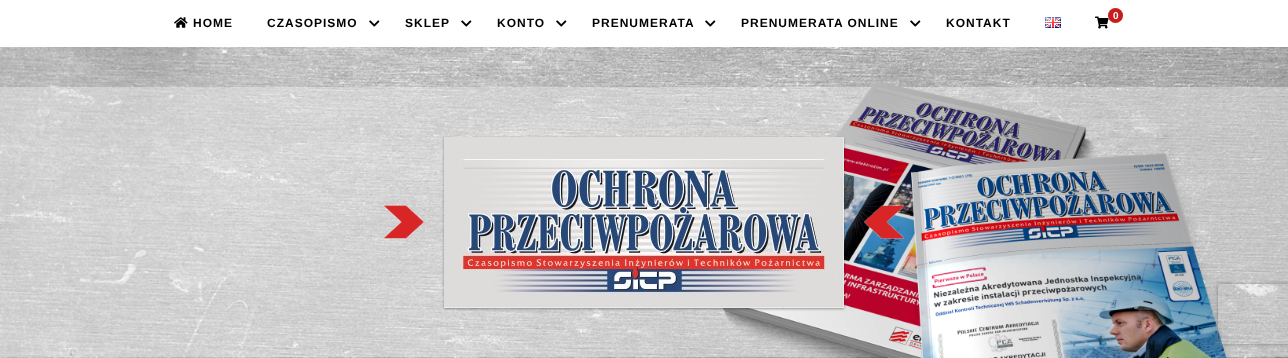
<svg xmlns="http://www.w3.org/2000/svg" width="1288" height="358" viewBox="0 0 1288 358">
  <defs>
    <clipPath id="clip1"><path d="M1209 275H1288V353H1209ZM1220 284H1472C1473 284 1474 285 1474 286V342C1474 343 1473 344 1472 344H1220C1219 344 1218 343 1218 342V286C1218 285 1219 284 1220 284Z" clip-rule="evenodd"/></clipPath>
  </defs>
  <rect width="100%" height="100%" fill="rgb(255,255,255)"/>
  <image x="1095" y="16" width="14" height="13" href="pic1.png"/>
  <circle cx="1115.5" cy="15.5" r="7.5" fill="rgb(198,29,29)"/>
  <text x="1113" y="19" font-family="Liberation Sans" font-size="10" font-weight="bold" letter-spacing="1" fill="rgb(255,255,255)">0</text>
  <image x="174" y="17" width="14" height="11" href="pic2.png"/>
  <g font-family="Liberation Sans" font-size="12" font-weight="bold" letter-spacing="1" fill="rgb(0,0,0)">
    <text x="193" y="27">HOME</text>
    <text x="267" y="27">CZASOPISMO</text>
  </g>
  <image x="369" y="20" width="11" height="7" href="pic3.png"/>
  <text x="405" y="27" font-family="Liberation Sans" font-size="12" font-weight="bold" letter-spacing="1" fill="rgb(0,0,0)">SKLEP</text>
  <image x="461" y="20" width="11" height="7" href="pic3.png"/>
  <text x="497" y="27" font-family="Liberation Sans" font-size="12" font-weight="bold" letter-spacing="1" fill="rgb(0,0,0)">KONTO</text>
  <image x="556" y="20" width="11" height="7" href="pic3.png"/>
  <text x="592" y="27" font-family="Liberation Sans" font-size="12" font-weight="bold" letter-spacing="1" fill="rgb(0,0,0)">PRENUMERATA</text>
  <image x="705" y="20" width="11" height="7" href="pic3.png"/>
  <text x="741" y="27" font-family="Liberation Sans" font-size="12" font-weight="bold" letter-spacing="1" fill="rgb(0,0,0)">PRENUMERATA ONLINE</text>
  <image x="910" y="20" width="11" height="7" href="pic3.png"/>
  <text x="946" y="27" font-family="Liberation Sans" font-size="12" font-weight="bold" letter-spacing="1" fill="rgb(0,0,0)">KONTAKT</text>
  <image x="1045" y="17" width="16" height="11" href="pic4.png"/>
  <image x="0" y="47" width="1288" height="311" href="pic5.png"/>
  <rect x="0" y="87" width="1288" height="270" fill="rgba(243,243,243,0.4)"/>
  <image x="722" y="82" width="511" height="276" href="pic6.png"/>
  <image x="384" y="205" width="40" height="34" href="pic7.png"/>
  <rect x="444" y="138" width="400" height="171" fill="rgba(0,0,0,0.24)" filter="blur(1px)"/>
  <rect x="444" y="138" width="400" height="171" fill="rgba(0,0,0,0.12)" filter="blur(1.5px)"/>
  <image x="444" y="137" width="400" height="171" href="pic8.png"/>
  <image x="864" y="205" width="40" height="34" href="pic9.png"/>
  <g clip-path="url(#clip1)">
    <rect x="1218" y="284" width="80" height="60" rx="2" fill="rgb(128,128,128)" filter="blur(2.5px)"/>
  </g>
</svg>
